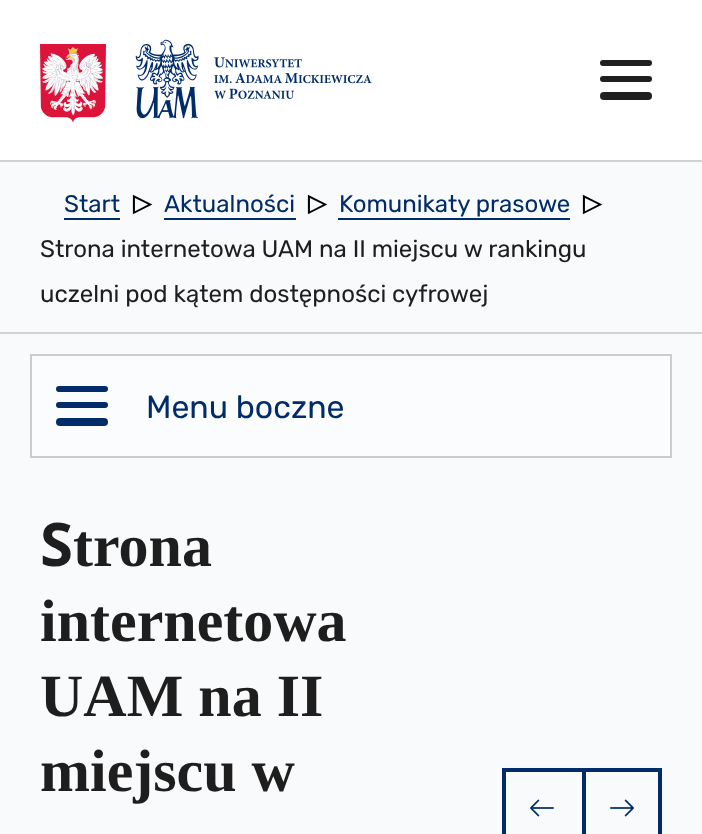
<svg xmlns="http://www.w3.org/2000/svg" width="702" height="834" viewBox="0 0 702 834">
  <rect width="100%" height="100%" fill="rgb(249,250,251)"/>
  <rect x="0" y="0" width="702" height="160" fill="rgb(255,255,255)"/>
  <image x="40" y="44" width="66" height="78" href="pic1.png"/>
  <image x="135" y="39" width="237" height="80" href="pic2.png"/>
  <rect x="600" y="76" width="52" height="6" rx="3" fill="rgb(31,31,31)"/>
  <rect x="600" y="60" width="52" height="6" rx="3" fill="rgb(31,31,31)"/>
  <rect x="600" y="92" width="52" height="8" rx="4" fill="rgb(31,31,31)"/>
  <rect x="0" y="160" width="702" height="2" fill="rgb(210,210,210)"/>
  <rect x="0" y="332" width="702" height="2" fill="rgb(210,210,210)"/>
  <text x="64" y="212" font-family="Rubik" font-size="24" fill="rgb(0,45,105)">Start</text>
  <rect x="64" y="218" width="56" height="2" fill="rgb(0,45,105)"/>
  <text x="152" y="198" transform="rotate(180 152 198)" font-family="DejaVu Sans" font-size="24" font-weight="bold" fill="rgb(0,0,0)">◁</text>
  <text x="164" y="212" font-family="Rubik" font-size="24" fill="rgb(0,45,105)">Aktualności</text>
  <rect x="164" y="218" width="132" height="2" fill="rgb(0,45,105)"/>
  <text x="327" y="198" transform="rotate(180 327 198)" font-family="DejaVu Sans" font-size="24" font-weight="bold" fill="rgb(0,0,0)">◁</text>
  <text x="339" y="212" font-family="Rubik" font-size="24" fill="rgb(0,45,105)">Komunikaty prasowe</text>
  <rect x="338" y="218" width="232" height="2" fill="rgb(0,45,105)"/>
  <text x="602" y="198" transform="rotate(180 602 198)" font-family="DejaVu Sans" font-size="24" font-weight="bold" fill="rgb(0,0,0)">◁</text>
  <g font-family="Rubik" font-size="24" fill="rgb(30,30,30)">
    <text>
      <tspan x="40" y="257">Strona internetowa UAM na II miejscu w rankingu</tspan>
      <tspan x="40" y="302">uczelni pod kątem dostępności cyfrowej</tspan>
    </text>
  </g>
  <rect x="31" y="355" width="640" height="102" fill="rgb(251,252,254)" stroke="rgb(204,204,204)" stroke-width="2"/>
  <rect x="56" y="402" width="52" height="6" rx="3" fill="rgb(0,45,105)"/>
  <rect x="56" y="386" width="52" height="6" rx="3" fill="rgb(0,45,105)"/>
  <rect x="56" y="418" width="52" height="8" rx="4" fill="rgb(0,45,105)"/>
  <text x="146" y="418" font-family="Rubik" font-size="32" fill="rgb(0,45,105)">Menu boczne</text>
  <text x="40" y="566" font-family="Noto Sans" font-size="60" font-weight="bold" fill="rgb(30,30,30)">S</text>
  <g font-family="Tinos" font-size="60" font-weight="bold" fill="rgb(30,30,30)">
    <text x="73" y="566">trona</text>
    <text>
      <tspan x="40" y="641">internetowa</tspan>
      <tspan x="40" y="716">UAM na II</tspan>
      <tspan x="40" y="791">miejscu w</tspan>
    </text>
  </g>
  <rect x="502" y="768" width="80" height="4" fill="rgb(0,45,105)"/>
  <rect x="502" y="768" width="4" height="66" fill="rgb(0,45,105)"/>
  <image x="530" y="799" width="24" height="18" href="pic3.png"/>
  <rect x="584" y="770" width="76" height="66" fill="none" stroke="rgb(0,45,105)" stroke-width="4"/>
  <image x="610" y="799" width="24" height="18" href="pic4.png"/>
</svg>
